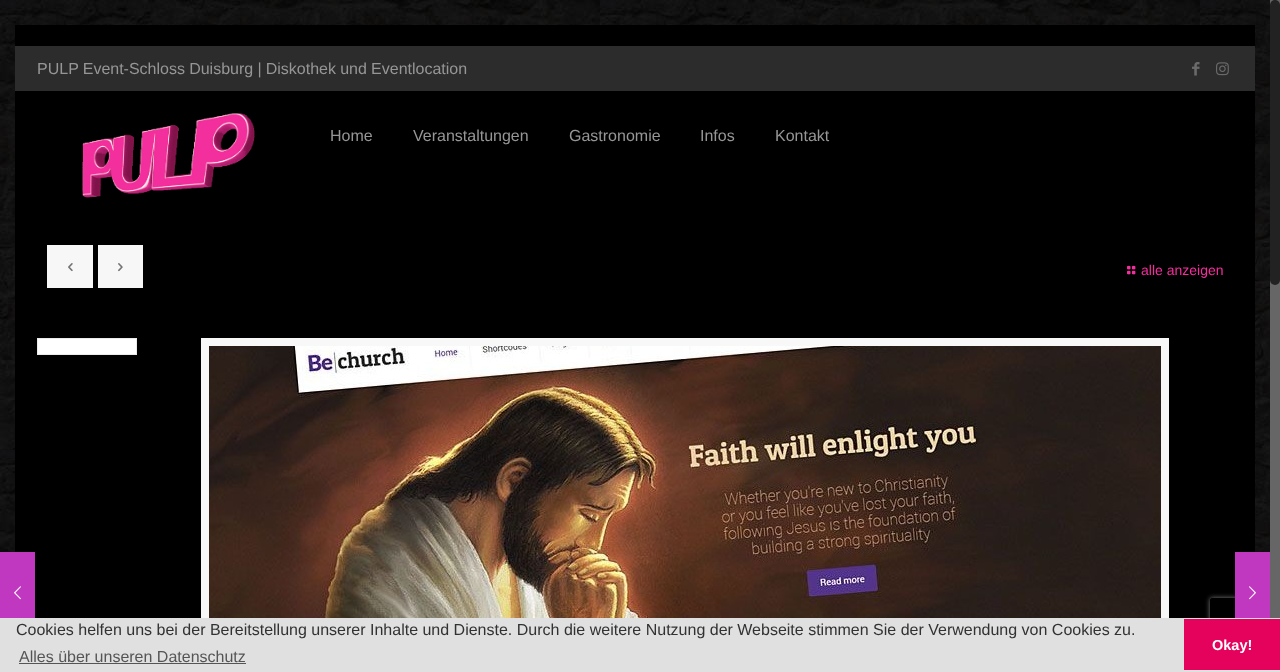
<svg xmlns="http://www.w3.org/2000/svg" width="1280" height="672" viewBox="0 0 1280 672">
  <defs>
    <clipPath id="clip1"><path d="M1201 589H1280V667H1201ZM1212 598H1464C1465 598 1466 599 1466 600V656C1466 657 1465 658 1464 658H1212C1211 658 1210 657 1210 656V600C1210 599 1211 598 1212 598Z" clip-rule="evenodd"/></clipPath>
  </defs>
  <rect width="100%" height="100%" fill="rgb(255,255,255)"/>
  <image x="0" y="0" width="1270" height="552" href="pic1.png"/>
  <rect x="15" y="25" width="1240" height="593" fill="rgb(0,0,0)"/>
  <rect x="15" y="46" width="1240" height="45" fill="rgb(44,44,44)"/>
  <text x="37" y="74" word-spacing="-0.25" font-family="Liberation Sans" font-size="16" fill="rgb(150,150,150)">PULP Event-Schloss Duisburg | Diskothek und Eventlocation</text>
  <image x="1192" y="62" width="8" height="14" href="pic2.png"/>
  <image x="1216" y="62" width="13" height="14" href="pic3.png"/>
  <image x="82" y="113" width="173" height="85" href="pic4.png"/>
  <g font-family="Liberation Sans" font-size="16" fill="rgb(150,150,150)">
    <text x="330" y="141">Home</text>
    <text x="413" y="141">Veranstaltungen</text>
    <text x="569" y="141">Gastronomie</text>
    <text x="700" y="141">Infos</text>
    <text x="775" y="141">Kontakt</text>
  </g>
  <rect x="47" y="245" width="46" height="43" fill="rgb(247,247,247)"/>
  <image x="68" y="263" width="5" height="9" href="pic5.png"/>
  <rect x="98" y="245" width="45" height="43" fill="rgb(247,247,247)"/>
  <image x="118" y="263" width="5" height="9" href="pic6.png"/>
  <image x="1127" y="265" width="9" height="10" href="pic7.png"/>
  <text x="1141" y="275" font-family="Liberation Sans" font-size="14" fill="rgb(243,46,157)">alle anzeigen</text>
  <rect x="37.5" y="338.5" width="99" height="16" fill="rgb(255,255,255)" stroke="rgb(235,235,235)"/>
  <rect x="205" y="342" width="960" height="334" fill="none" stroke="rgb(248,248,248)" stroke-width="8"/>
  <image x="209" y="346" width="952" height="272" href="pic8.png"/>
  <g clip-path="url(#clip1)">
    <rect x="1210" y="598" width="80" height="60" rx="2" fill="rgb(128,128,128)" filter="blur(2.5px)"/>
  </g>
  <rect x="1270" y="0" width="10" height="618" fill="rgb(102,102,102)"/>
  <rect x="1270" y="0" width="10" height="285" rx="5" fill="rgb(34,34,34)"/>
  <rect x="0" y="552" width="35" height="66" fill="rgb(192,56,192)"/>
  <image x="14" y="586" width="7" height="14" href="pic9.png"/>
  <rect x="1235" y="552" width="35" height="66" fill="rgb(192,56,192)"/>
  <image x="1249" y="586" width="7" height="14" href="pic10.png"/>
  <rect x="0" y="618" width="1280" height="54" fill="rgb(224,224,224)"/>
  <text x="16" y="635" font-family="Liberation Sans" font-size="16" fill="rgb(51,50,50)">Cookies helfen uns bei der Bereitstellung unserer Inhalte und Dienste. Durch die weitere Nutzung der Webseite stimmen Sie der Verwendung von Cookies zu.</text>
  <text x="19" y="662" font-family="Liberation Sans" font-size="16" fill="rgb(86,85,85)">Alles über unseren Datenschutz</text>
  <rect x="19" y="663" width="227" height="1" fill="rgb(86,85,85)"/>
  <rect x="1184" y="619" width="96" height="51" fill="rgb(229,2,93)"/>
  <text x="1212" y="650" font-family="Liberation Sans" font-size="14.5" font-weight="bold" fill="rgb(255,255,255)">Okay!</text>
</svg>
